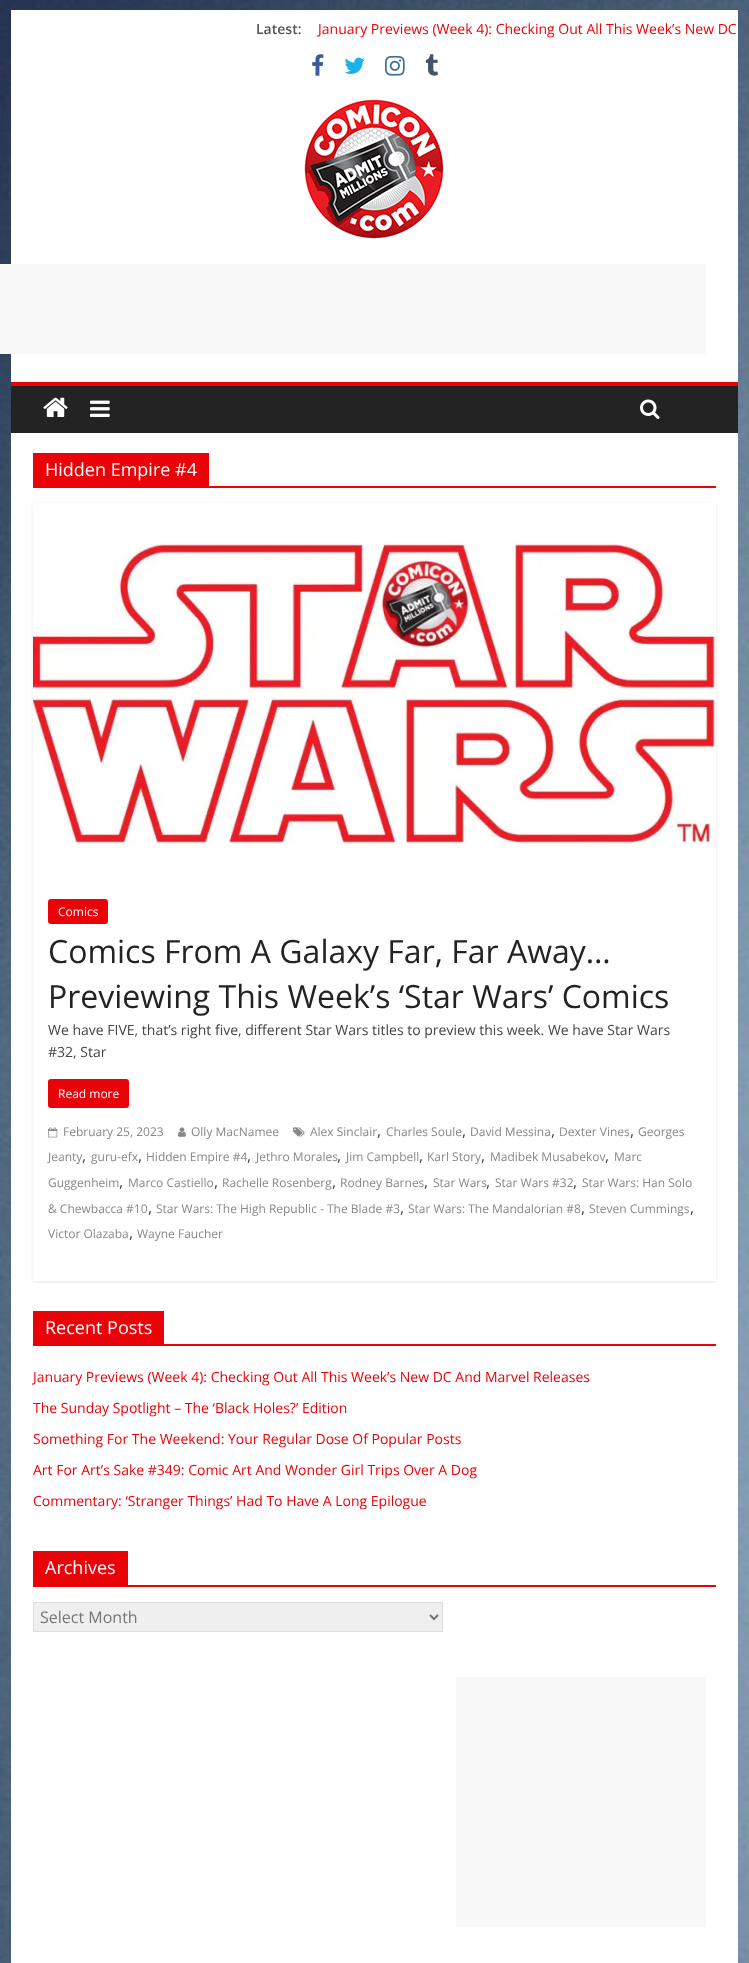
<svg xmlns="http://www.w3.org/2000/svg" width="749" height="1963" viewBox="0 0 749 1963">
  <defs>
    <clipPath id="clip1"><path d="M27 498H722V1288H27ZM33 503H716V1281H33Z" clip-rule="evenodd"/></clipPath>
  </defs>
  <rect width="100%" height="100%" fill="rgb(255,255,255)"/>
  <image x="0" y="0" width="749" height="1963" href="pic1.png"/>
  <rect x="11" y="10" width="727" height="372" fill="rgb(255,255,255)"/>
  <text x="256" y="34" font-family="Open Sans" font-size="14" font-weight="600" fill="rgb(85,85,85)">Latest:</text>
  <text x="318" y="34" font-family="Open Sans" font-size="14" fill="rgb(234,2,9)">January Previews (Week 4): Checking Out All This Week’s New DC</text>
  <image x="312" y="54" width="12" height="22" href="pic2.png"/>
  <image x="344" y="57" width="21" height="17" href="pic3.png"/>
  <image x="385" y="55" width="20" height="21" href="pic4.png"/>
  <image x="425" y="54" width="14" height="22" href="pic5.png"/>
  <image x="304" y="99" width="140" height="140" href="pic6.png"/>
  <rect x="0" y="264" width="706" height="90" fill="rgb(248,248,248)"/>
  <rect x="11" y="386" width="727" height="47" fill="rgb(35,35,35)"/>
  <rect x="11" y="382" width="727" height="4" fill="rgb(234,2,9)"/>
  <image x="43" y="397" width="25" height="20" href="pic7.png"/>
  <image x="90" y="400" width="20" height="17" href="pic8.png"/>
  <image x="640" y="399" width="20" height="20" href="pic9.png"/>
  <rect x="11" y="433" width="727" height="1530" fill="rgb(255,255,255)"/>
  <rect x="33" y="486" width="683" height="2" fill="rgb(234,2,9)"/>
  <rect x="33" y="453" width="176" height="33" fill="rgb(234,2,9)"/>
  <text x="45" y="476" font-family="Open Sans" font-size="18" fill="rgb(255,255,255)">Hidden Empire #4</text>
  <g clip-path="url(#clip1)">
    <rect x="33" y="504" width="683" height="778" fill="rgba(0,0,0,0.1)" filter="blur(1.5px)"/>
  </g>
  <image x="33" y="543" width="683" height="302" href="pic10.png"/>
  <rect x="48" y="899" width="60" height="25" rx="3" fill="rgb(234,2,9)"/>
  <text x="58" y="916" font-family="Open Sans" font-size="12" fill="rgb(255,255,255)">Comics</text>
  <g font-family="Open Sans" font-size="32" fill="rgb(35,35,35)">
    <text>
      <tspan x="48" y="963">Comics From A Galaxy Far, Far Away…</tspan>
      <tspan x="48" y="1008">Previewing This Week’s ‘Star Wars’ Comics</tspan>
    </text>
  </g>
  <g font-family="Open Sans" font-size="14" fill="rgb(68,68,68)">
    <text>
      <tspan x="48" y="1035">We have FIVE, that’s right five, different Star Wars titles to preview this week. We have Star Wars</tspan>
      <tspan x="48" y="1057">#32, Star</tspan>
    </text>
  </g>
  <rect x="48" y="1079" width="81" height="29" rx="3" fill="rgb(234,2,9)"/>
  <text x="58" y="1098" font-family="Open Sans" font-size="12" fill="rgb(255,255,255)">Read more</text>
  <image x="293" y="1127" width="12" height="10" href="pic11.png"/>
  <text x="310" y="1136" font-family="Open Sans" font-size="12" fill="rgb(136,136,136)">Alex Sinclair</text>
  <text x="377" y="1136" font-family="Open Sans" font-size="16" fill="rgb(68,68,68)">,</text>
  <text x="386" y="1136" font-family="Open Sans" font-size="12" fill="rgb(136,136,136)">Charles Soule</text>
  <text x="462" y="1136" font-family="Open Sans" font-size="16" fill="rgb(68,68,68)">,</text>
  <text x="470" y="1136" font-family="Open Sans" font-size="12" fill="rgb(136,136,136)">David Messina</text>
  <text x="551" y="1136" font-family="Open Sans" font-size="16" fill="rgb(68,68,68)">,</text>
  <text x="559" y="1136" font-family="Open Sans" font-size="12" fill="rgb(136,136,136)">Dexter Vines</text>
  <text x="630" y="1136" font-family="Open Sans" font-size="16" fill="rgb(68,68,68)">,</text>
  <g font-family="Open Sans" font-size="12" fill="rgb(136,136,136)">
    <text x="638" y="1136">Georges</text>
    <text x="48" y="1161">Jeanty</text>
  </g>
  <text x="82" y="1161" font-family="Open Sans" font-size="16" fill="rgb(68,68,68)">,</text>
  <text x="91" y="1161" font-family="Open Sans" font-size="12" fill="rgb(136,136,136)">guru-efx</text>
  <text x="138" y="1161" font-family="Open Sans" font-size="16" fill="rgb(68,68,68)">,</text>
  <text x="146" y="1161" font-family="Open Sans" font-size="12" fill="rgb(136,136,136)">Hidden Empire #4</text>
  <text x="247" y="1161" font-family="Open Sans" font-size="16" fill="rgb(68,68,68)">,</text>
  <text x="256" y="1161" font-family="Open Sans" font-size="12" fill="rgb(136,136,136)">Jethro Morales</text>
  <text x="337" y="1161" font-family="Open Sans" font-size="16" fill="rgb(68,68,68)">,</text>
  <text x="346" y="1161" font-family="Open Sans" font-size="12" fill="rgb(136,136,136)">Jim Campbell</text>
  <text x="419" y="1161" font-family="Open Sans" font-size="16" fill="rgb(68,68,68)">,</text>
  <text x="427" y="1161" font-family="Open Sans" font-size="12" fill="rgb(136,136,136)">Karl Story</text>
  <text x="481" y="1161" font-family="Open Sans" font-size="16" fill="rgb(68,68,68)">,</text>
  <text x="490" y="1161" font-family="Open Sans" font-size="12" fill="rgb(136,136,136)">Madibek Musabekov</text>
  <text x="605" y="1161" font-family="Open Sans" font-size="16" fill="rgb(68,68,68)">,</text>
  <g font-family="Open Sans" font-size="12" fill="rgb(136,136,136)">
    <text x="614" y="1161">Marc</text>
    <text x="48" y="1187">Guggenheim</text>
  </g>
  <text x="119" y="1187" font-family="Open Sans" font-size="16" fill="rgb(68,68,68)">,</text>
  <text x="128" y="1187" font-family="Open Sans" font-size="12" fill="rgb(136,136,136)">Marco Castiello</text>
  <text x="214" y="1187" font-family="Open Sans" font-size="16" fill="rgb(68,68,68)">,</text>
  <text x="222" y="1187" font-family="Open Sans" font-size="12" fill="rgb(136,136,136)">Rachelle Rosenberg</text>
  <text x="332" y="1187" font-family="Open Sans" font-size="16" fill="rgb(68,68,68)">,</text>
  <text x="340" y="1187" font-family="Open Sans" font-size="12" fill="rgb(136,136,136)">Rodney Barnes</text>
  <text x="424" y="1187" font-family="Open Sans" font-size="16" fill="rgb(68,68,68)">,</text>
  <text x="433" y="1187" font-family="Open Sans" font-size="12" fill="rgb(136,136,136)">Star Wars</text>
  <text x="486" y="1187" font-family="Open Sans" font-size="16" fill="rgb(68,68,68)">,</text>
  <text x="495" y="1187" font-family="Open Sans" font-size="12" fill="rgb(136,136,136)">Star Wars #32</text>
  <text x="573" y="1187" font-family="Open Sans" font-size="16" fill="rgb(68,68,68)">,</text>
  <g font-family="Open Sans" font-size="12" fill="rgb(136,136,136)">
    <text x="582" y="1187">Star Wars: Han Solo</text>
    <text x="48" y="1213">&amp; Chewbacca #10</text>
  </g>
  <text x="148" y="1213" font-family="Open Sans" font-size="16" fill="rgb(68,68,68)">,</text>
  <text x="156" y="1213" font-family="Open Sans" font-size="12" fill="rgb(136,136,136)">Star Wars: The High Republic - The Blade #3</text>
  <text x="400" y="1213" font-family="Open Sans" font-size="16" fill="rgb(68,68,68)">,</text>
  <text x="408" y="1213" font-family="Open Sans" font-size="12" fill="rgb(136,136,136)">Star Wars: The Mandalorian #8</text>
  <text x="581" y="1213" font-family="Open Sans" font-size="16" fill="rgb(68,68,68)">,</text>
  <text x="589" y="1213" font-family="Open Sans" font-size="12" fill="rgb(136,136,136)">Steven Cummings</text>
  <text x="690" y="1213" font-family="Open Sans" font-size="16" fill="rgb(68,68,68)">,</text>
  <text x="48" y="1238" font-family="Open Sans" font-size="12" fill="rgb(136,136,136)">Victor Olazaba</text>
  <text x="129" y="1238" font-family="Open Sans" font-size="16" fill="rgb(68,68,68)">,</text>
  <text x="137" y="1238" font-family="Open Sans" font-size="12" fill="rgb(136,136,136)">Wayne Faucher</text>
  <image x="48" y="1127" width="10" height="11" href="pic12.png"/>
  <text x="63" y="1136" font-family="Open Sans" font-size="12" fill="rgb(136,136,136)">February 25, 2023</text>
  <image x="178" y="1127" width="8" height="10" href="pic13.png"/>
  <text x="191" y="1136" font-family="Open Sans" font-size="12" fill="rgb(136,136,136)">Olly MacNamee</text>
  <rect x="33" y="1344" width="683" height="2" fill="rgb(234,2,9)"/>
  <rect x="33" y="1311" width="131" height="33" fill="rgb(234,2,9)"/>
  <text x="45" y="1334" font-family="Open Sans" font-size="18" fill="rgb(255,255,255)">Recent Posts</text>
  <g font-family="Open Sans" font-size="14" fill="rgb(234,2,9)">
    <text x="33" y="1382">January Previews (Week 4): Checking Out All This Week’s New DC And Marvel Releases</text>
    <text x="33" y="1413">The Sunday Spotlight – The ‘Black Holes?’ Edition</text>
    <text x="33" y="1444">Something For The Weekend: Your Regular Dose Of Popular Posts</text>
    <text x="33" y="1475">Art For Art’s Sake #349: Comic Art And Wonder Girl Trips Over A Dog</text>
    <text x="33" y="1506">Commentary: ‘Stranger Things’ Had To Have A Long Epilogue</text>
  </g>
  <rect x="33" y="1585" width="683" height="2" fill="rgb(234,2,9)"/>
  <rect x="33" y="1551" width="95" height="34" fill="rgb(234,2,9)"/>
  <text x="45" y="1574" font-family="Open Sans" font-size="18" fill="rgb(255,255,255)">Archives</text>
  <rect x="33.5" y="1602.5" width="409" height="29" fill="rgb(239,239,239)" stroke="rgb(221,221,221)"/>
  <path d="M430 1615L434 1619L438 1615" fill="none" stroke="rgb(119,119,119)" stroke-width="2"/>
  <text x="40" y="1623" font-family="Open Sans" font-size="16" fill="rgb(119,119,119)">Select Month</text>
  <rect x="456" y="1677" width="250" height="250" fill="rgb(248,248,248)"/>
</svg>
